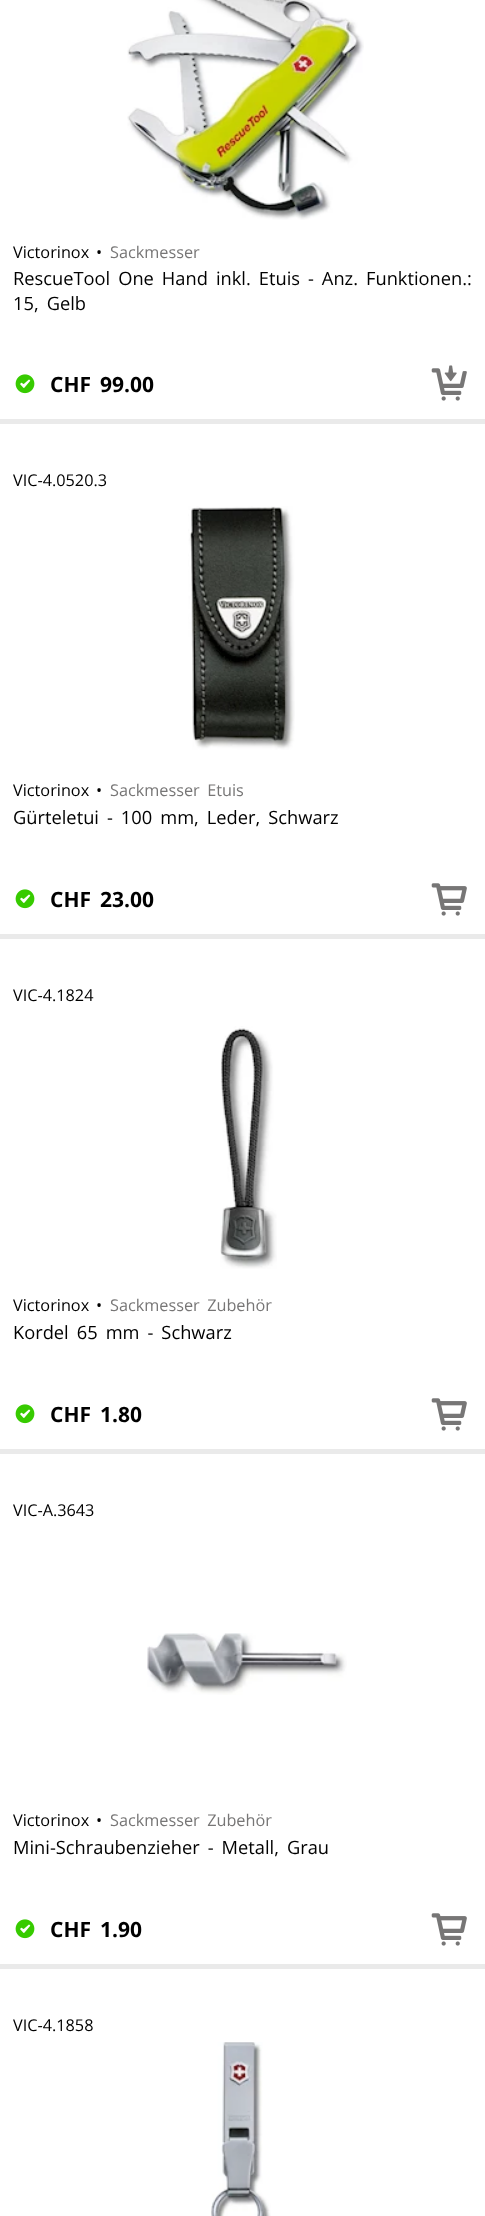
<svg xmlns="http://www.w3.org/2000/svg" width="485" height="2216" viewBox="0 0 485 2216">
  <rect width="100%" height="100%" fill="rgb(234,234,234)"/>
  <rect x="0" y="0" width="485" height="419" fill="rgb(255,255,255)"/>
  <image x="127" y="0" width="237" height="220" href="pic1.png"/>
  <g font-family="Open Sans" font-size="16.25" fill="rgb(0,0,0)">
    <text x="13" y="258">Victorinox</text>
    <text x="96" y="258">•</text>
  </g>
  <text x="110" y="258" font-family="Open Sans" font-size="16.25" fill="rgb(119,118,118)">Sackmesser</text>
  <g font-family="Open Sans" font-size="18.3" fill="rgb(0,0,0)">
    <text>
      <tspan x="13" y="285" word-spacing="3.25">RescueTool One Hand inkl. Etuis - Anz. Funktionen.:</tspan>
      <tspan x="13" y="310" word-spacing="3.25">15, Gelb</tspan>
    </text>
  </g>
  <image x="15" y="374" width="20" height="20" href="pic2.png"/>
  <g font-family="Open Sans" font-size="21" font-weight="bold" fill="rgb(0,0,0)">
    <text x="50" y="392">CHF</text>
    <text x="100" y="392">99.00</text>
  </g>
  <image x="431" y="365" width="36" height="36" href="pic3.png"/>
  <rect x="0" y="424" width="485" height="510" fill="rgb(255,255,255)"/>
  <text x="13" y="486" font-family="Open Sans" font-size="16.25" fill="rgb(0,0,0)">VIC-4.0520.3</text>
  <image x="188" y="506" width="107" height="244" href="pic4.png"/>
  <g font-family="Open Sans" font-size="16.25" fill="rgb(0,0,0)">
    <text x="13" y="796">Victorinox</text>
    <text x="96" y="796">•</text>
  </g>
  <text x="110" y="796" word-spacing="3.25" font-family="Open Sans" font-size="16.25" fill="rgb(119,118,118)">Sackmesser Etuis</text>
  <text x="13" y="824" word-spacing="3.25" font-family="Open Sans" font-size="18.3" fill="rgb(0,0,0)">Gürteletui - 100 mm, Leder, Schwarz</text>
  <image x="15" y="889" width="20" height="20" href="pic2.png"/>
  <g font-family="Open Sans" font-size="21" font-weight="bold" fill="rgb(0,0,0)">
    <text x="50" y="907">CHF</text>
    <text x="100" y="907">23.00</text>
  </g>
  <image x="431" y="883" width="36" height="33" href="pic5.png"/>
  <rect x="0" y="939" width="485" height="510" fill="rgb(255,255,255)"/>
  <text x="13" y="1001" font-family="Open Sans" font-size="16.25" fill="rgb(0,0,0)">VIC-4.1824</text>
  <image x="220" y="1026" width="57" height="243" href="pic6.png"/>
  <g font-family="Open Sans" font-size="16.25" fill="rgb(0,0,0)">
    <text x="13" y="1311">Victorinox</text>
    <text x="96" y="1311">•</text>
  </g>
  <text x="110" y="1311" word-spacing="3.25" font-family="Open Sans" font-size="16.25" fill="rgb(119,118,118)">Sackmesser Zubehör</text>
  <text x="13" y="1339" word-spacing="3.25" font-family="Open Sans" font-size="18.3" fill="rgb(0,0,0)">Kordel 65 mm - Schwarz</text>
  <image x="15" y="1404" width="20" height="20" href="pic2.png"/>
  <g font-family="Open Sans" font-size="21" font-weight="bold" fill="rgb(0,0,0)">
    <text x="50" y="1422">CHF</text>
    <text x="100" y="1422">1.80</text>
  </g>
  <image x="431" y="1398" width="36" height="33" href="pic5.png"/>
  <rect x="0" y="1454" width="485" height="510" fill="rgb(255,255,255)"/>
  <text x="13" y="1516" font-family="Open Sans" font-size="16.25" fill="rgb(0,0,0)">VIC-A.3643</text>
  <image x="147" y="1633" width="200" height="62" href="pic7.png"/>
  <g font-family="Open Sans" font-size="16.25" fill="rgb(0,0,0)">
    <text x="13" y="1826">Victorinox</text>
    <text x="96" y="1826">•</text>
  </g>
  <text x="110" y="1826" word-spacing="3.25" font-family="Open Sans" font-size="16.25" fill="rgb(119,118,118)">Sackmesser Zubehör</text>
  <text x="13" y="1854" word-spacing="3.25" font-family="Open Sans" font-size="18.3" fill="rgb(0,0,0)">Mini-Schraubenzieher - Metall, Grau</text>
  <image x="15" y="1919" width="20" height="20" href="pic2.png"/>
  <g font-family="Open Sans" font-size="21" font-weight="bold" fill="rgb(0,0,0)">
    <text x="50" y="1937">CHF</text>
    <text x="100" y="1937">1.90</text>
  </g>
  <image x="431" y="1913" width="36" height="33" href="pic5.png"/>
  <rect x="0" y="1969" width="485" height="247" fill="rgb(255,255,255)"/>
  <text x="13" y="2031" font-family="Open Sans" font-size="16.25" fill="rgb(0,0,0)">VIC-4.1858</text>
  <image x="211" y="2042" width="60" height="174" href="pic8.png"/>
</svg>
